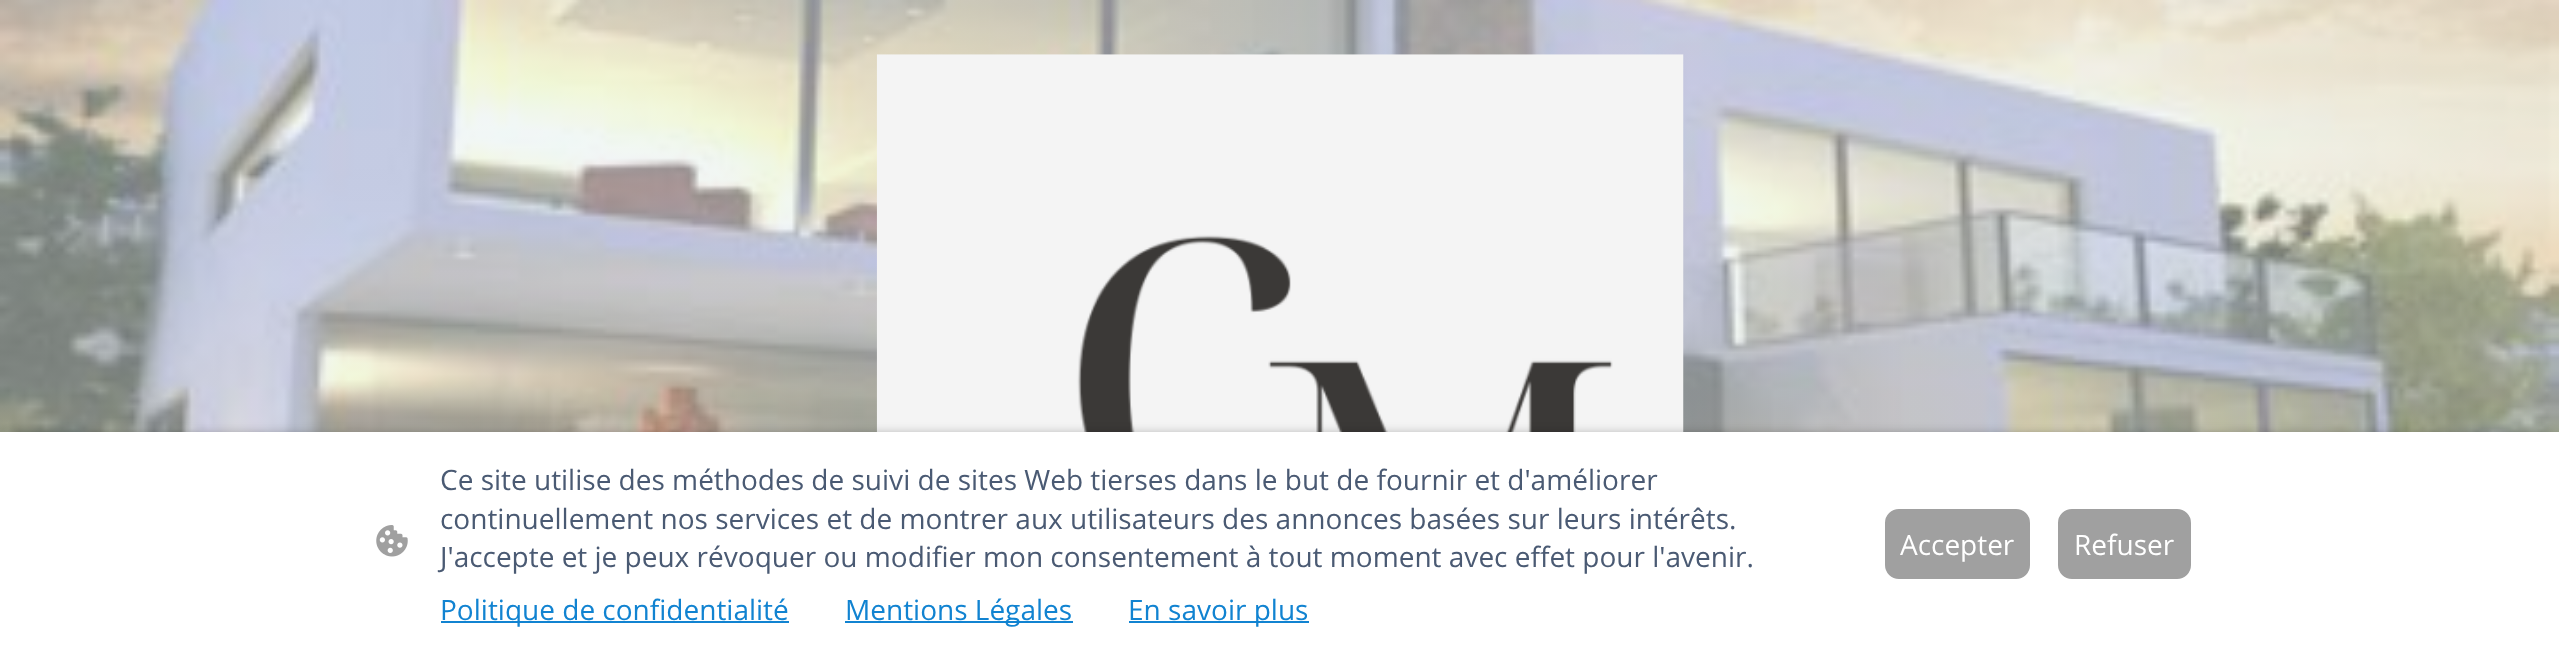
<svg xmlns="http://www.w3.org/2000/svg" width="2559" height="655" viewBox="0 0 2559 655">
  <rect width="100%" height="100%" fill="rgb(255,255,255)"/>
  <image x="0" y="0" width="2559" height="432" href="pic1.png"/>
  <image x="876" y="54" width="808" height="378" href="pic2.png"/>
  <rect x="11" y="438" width="2539" height="203" fill="rgba(0,0,0,0.63)" filter="blur(7px)"/>
  <rect x="0" y="432" width="2559" height="223" fill="rgb(255,255,255)"/>
  <image x="376" y="525" width="32" height="32" href="pic3.png"/>
  <g font-family="Open Sans" font-size="28" fill="rgb(74,90,115)">
    <text>
      <tspan x="440" y="490">Ce site utilise des méthodes de suivi de sites Web tierses dans le but de fournir et d'améliorer</tspan>
      <tspan x="440" y="529">continuellement nos services et de montrer aux utilisateurs des annonces basées sur leurs intérêts.</tspan>
      <tspan x="440" y="567">J'accepte et je peux révoquer ou modifier mon consentement à tout moment avec effet pour l'avenir.</tspan>
    </text>
  </g>
  <rect x="441" y="621" width="348" height="2" fill="rgb(17,131,209)"/>
  <text x="440" y="620" font-family="Open Sans" font-size="28" fill="rgb(17,131,209)">Politique de confidentialité</text>
  <rect x="845" y="621" width="228" height="2" fill="rgb(17,131,209)"/>
  <text x="845" y="620" font-family="Open Sans" font-size="28" fill="rgb(17,131,209)">Mentions Légales</text>
  <rect x="1129" y="621" width="180" height="2" fill="rgb(17,131,209)"/>
  <text x="1128" y="620" font-family="Open Sans" font-size="28" fill="rgb(17,131,209)">En savoir plus</text>
  <rect x="1886" y="510" width="143" height="68" rx="13" fill="rgb(160,160,160)" stroke="rgb(160,160,160)" stroke-width="2"/>
  <text x="1900" y="555" font-family="Open Sans" font-size="28" fill="rgb(255,255,255)">Accepter</text>
  <rect x="2059" y="510" width="131" height="68" rx="13" fill="rgb(160,160,160)" stroke="rgb(160,160,160)" stroke-width="2"/>
  <text x="2074" y="555" font-family="Open Sans" font-size="28" fill="rgb(255,255,255)">Refuser</text>
</svg>
